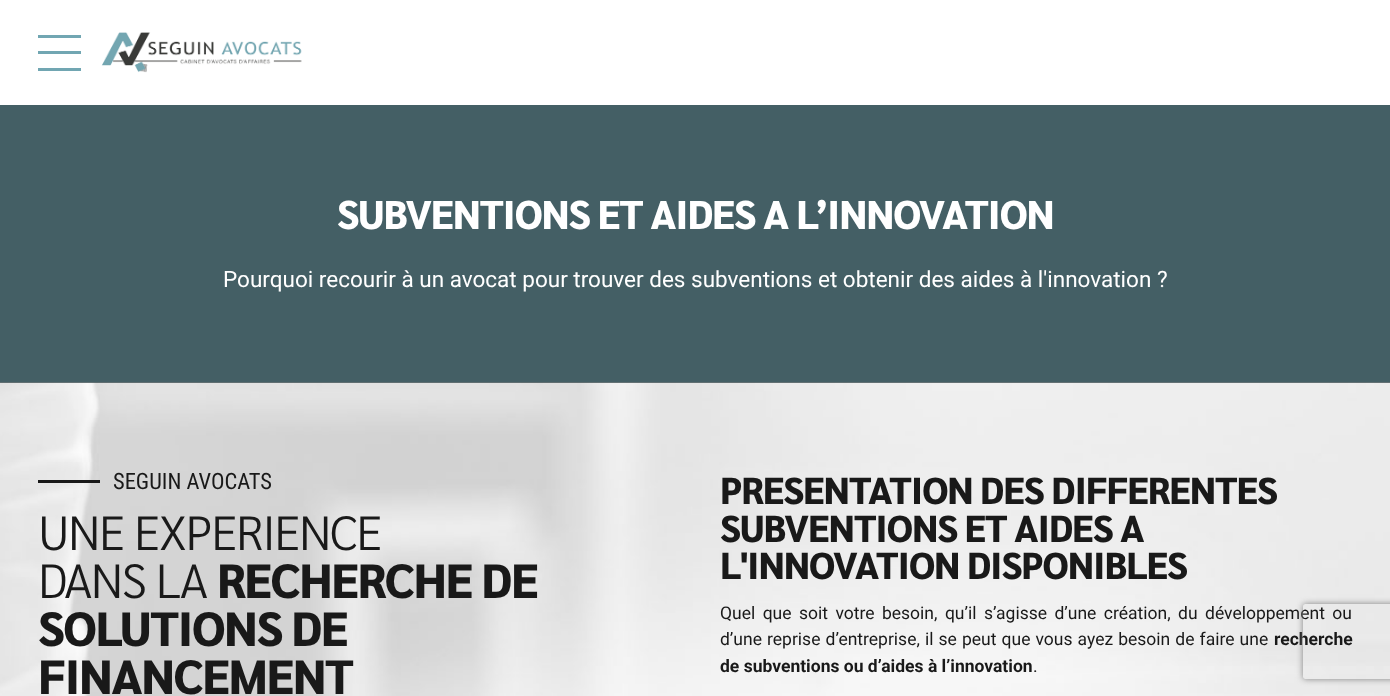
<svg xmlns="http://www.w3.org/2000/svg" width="1390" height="696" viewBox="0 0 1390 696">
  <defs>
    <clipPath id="clip1"><path d="M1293 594H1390V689H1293ZM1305.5 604H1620.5C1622 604 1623 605 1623 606.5V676.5C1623 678 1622 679 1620.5 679H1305.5C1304 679 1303 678 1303 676.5V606.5C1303 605 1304 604 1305.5 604Z" clip-rule="evenodd"/></clipPath>
  </defs>
  <rect width="100%" height="100%" fill="rgb(255,255,255)"/>
  <rect x="38" y="35" width="43" height="3" fill="rgb(113,166,178)"/>
  <rect x="38" y="51" width="43" height="3" fill="rgb(113,166,178)"/>
  <rect x="38" y="68" width="43" height="3" fill="rgb(113,166,178)"/>
  <image x="101" y="32" width="201" height="41" href="pic1.png"/>
  <rect x="0" y="105" width="1390" height="278" fill="rgb(113,166,178)"/>
  <image x="0" y="382" width="1390" height="314" href="pic2.png"/>
  <rect x="0" y="105" width="1390" height="278" fill="rgba(24,24,24,0.5)"/>
  <text x="337" y="229" font-family="Sarabun" font-size="40" font-weight="800" letter-spacing="-1.2" fill="rgb(255,255,255)">SUBVENTIONS ET AIDES A L’INNOVATION</text>
  <text x="223" y="287" font-family="Roboto" font-size="22.5" fill="rgb(255,255,255)">Pourquoi recourir à un avocat pour trouver des subventions et obtenir des aides à l'innovation ?</text>
  <rect x="38" y="480" width="62" height="3" fill="rgb(25,25,25)"/>
  <text x="113" y="489" font-family="Roboto Condensed" font-size="22.5" fill="rgb(25,25,25)">SEGUIN AVOCATS</text>
  <g font-family="Sarabun" font-size="48" font-weight="300" letter-spacing="-1.5" fill="rgb(25,25,25)">
    <text>
      <tspan x="38" y="550">UNE EXPERIENCE</tspan>
      <tspan x="38" y="598">DANS LA</tspan>
    </text>
  </g>
  <g font-family="Sarabun" font-size="48" font-weight="800" letter-spacing="-1.5" fill="rgb(25,25,25)">
    <text x="217" y="598">RECHERCHE DE</text>
    <text>
      <tspan x="38" y="646">SOLUTIONS DE</tspan>
      <tspan x="38" y="694">FINANCEMENT</tspan>
    </text>
  </g>
  <g font-family="Sarabun" font-size="37.5" font-weight="800" letter-spacing="-1.1" fill="rgb(25,25,25)">
    <text>
      <tspan x="720" y="504">PRESENTATION DES DIFFERENTES</tspan>
      <tspan x="720" y="542">SUBVENTIONS ET AIDES A</tspan>
      <tspan x="720" y="579">L'INNOVATION DISPONIBLES</tspan>
    </text>
  </g>
  <g font-family="Roboto" font-size="17.5" fill="rgb(25,25,25)">
    <text>
      <tspan x="720" y="619" word-spacing="3.1">Quel que soit votre besoin, qu’il s’agisse d’une création, du développement ou</tspan>
      <tspan x="720" y="645" word-spacing="0.75">d’une reprise d’entreprise, il se peut que vous ayez besoin de faire une</tspan>
    </text>
  </g>
  <g font-family="Roboto" font-size="17.5" font-weight="bold" fill="rgb(25,25,25)">
    <text x="1274" y="645">recherche</text>
    <text x="720" y="672">de subventions ou d’aides à l’innovation</text>
  </g>
  <text x="1033" y="672" font-family="Roboto" font-size="17.5" fill="rgb(25,25,25)">.</text>
  <g clip-path="url(#clip1)">
    <rect x="1303" y="604" width="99" height="75" rx="2.5" fill="rgb(128,128,128)" filter="blur(3px)"/>
  </g>
</svg>
